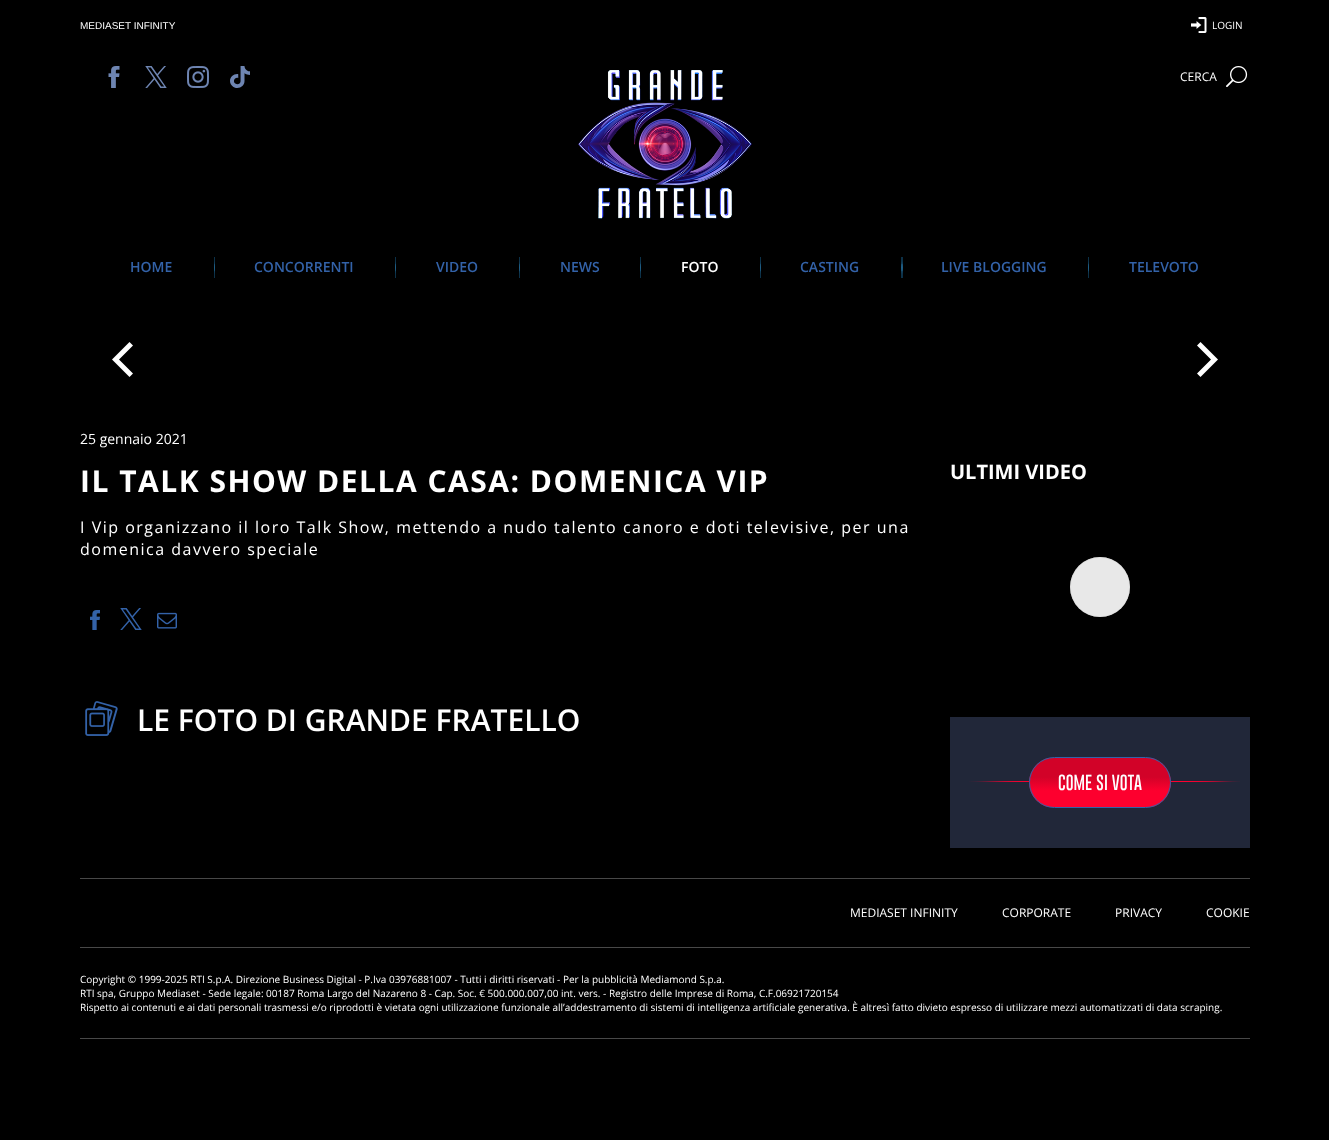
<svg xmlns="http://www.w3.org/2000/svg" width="1329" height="1140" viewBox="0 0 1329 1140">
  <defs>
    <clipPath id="clip1"><rect x="1029" y="757" width="142" height="51" rx="25.5"/></clipPath>
    <linearGradient id="g1" gradientUnits="userSpaceOnUse" x1="1100" y1="758" x2="1100" y2="807"><stop offset="0.32" stop-color="rgb(210,2,40)"/><stop offset="0.39" stop-color="rgb(210,2,40)"/><stop offset="0.67" stop-color="rgb(253,0,46)"/><stop offset="1" stop-color="rgb(253,0,46)"/></linearGradient>
  </defs>
  <rect width="100%" height="100%" fill="rgb(0,0,0)"/>
  <text x="80" y="29" font-family="Liberation Sans" font-size="10" fill="rgb(255,255,255)">MEDIASET INFINITY</text>
  <image x="1191" y="17" width="16" height="16" href="pic1.png"/>
  <text x="1212" y="29" font-family="Open Sans" font-size="10" fill="rgb(255,255,255)">LOGIN</text>
  <image x="108" y="66" width="12" height="22" href="pic2.png"/>
  <image x="145" y="66" width="22" height="22" href="pic3.png"/>
  <image x="187" y="66" width="22" height="22" href="pic4.png"/>
  <image x="230" y="66" width="20" height="22" href="pic5.png"/>
  <text x="1180" y="81" font-family="Open Sans" font-size="12" fill="rgb(255,255,255)">CERCA</text>
  <image x="1226" y="66" width="22" height="21" href="pic6.png"/>
  <text x="130" y="272" font-family="Open Sans" font-size="14" font-weight="600" fill="rgb(51,98,168)">HOME</text>
  <image x="214" y="257" width="1" height="21" href="pic7.png"/>
  <text x="254" y="272" font-family="Open Sans" font-size="14" font-weight="600" fill="rgb(51,98,168)">CONCORRENTI</text>
  <image x="395" y="257" width="1" height="21" href="pic7.png"/>
  <text x="436" y="272" font-family="Open Sans" font-size="14" font-weight="600" fill="rgb(51,98,168)">VIDEO</text>
  <image x="519" y="257" width="1" height="21" href="pic7.png"/>
  <text x="560" y="272" font-family="Open Sans" font-size="14" font-weight="600" fill="rgb(51,98,168)">NEWS</text>
  <image x="640" y="257" width="1" height="21" href="pic7.png"/>
  <text x="681" y="272" font-family="Open Sans" font-size="14" font-weight="600" fill="rgb(255,255,255)">FOTO</text>
  <image x="760" y="257" width="1" height="21" href="pic7.png"/>
  <text x="800" y="272" font-family="Open Sans" font-size="14" font-weight="600" fill="rgb(51,98,168)">CASTING</text>
  <image x="901" y="257" width="2" height="21" href="pic8.png"/>
  <text x="941" y="272" font-family="Open Sans" font-size="14" font-weight="600" fill="rgb(51,98,168)">LIVE BLOGGING</text>
  <image x="1088" y="257" width="1" height="21" href="pic7.png"/>
  <text x="1129" y="272" font-family="Open Sans" font-size="14" font-weight="600" fill="rgb(51,98,168)">TELEVOTO</text>
  <image x="578" y="70" width="174" height="149" href="pic9.png"/>
  <path d="M133 345.5L119 359.5L133 373.5L129.5 377L112 359.5L129.5 342Z" fill="rgb(255,255,255)"/>
  <path d="M1197 345.5L1211 359.5L1197 373.5L1200.5 377L1218 359.5L1200.5 342Z" fill="rgb(255,255,255)"/>
  <text x="80" y="444" font-family="Open Sans" font-size="14" fill="rgb(255,255,255)">25 gennaio 2021</text>
  <text x="80" y="492" font-family="Open Sans" font-size="30" font-weight="bold" letter-spacing="1.5" fill="rgb(255,255,255)">IL TALK SHOW DELLA CASA: DOMENICA VIP</text>
  <g font-family="Open Sans" font-size="16" letter-spacing="1.5" fill="rgb(255,255,255)">
    <text>
      <tspan x="80" y="533">I Vip organizzano il loro Talk Show, mettendo a nudo talento canoro e doti televisive, per una</tspan>
      <tspan x="80" y="555">domenica davvero speciale</tspan>
    </text>
  </g>
  <image x="90" y="610" width="10" height="20" href="pic10.png"/>
  <image x="120" y="608" width="22" height="22" href="pic11.png"/>
  <image x="157" y="612" width="20" height="17" href="pic12.png"/>
  <image x="85" y="701" width="33" height="35" href="pic13.png"/>
  <text x="137" y="731" font-family="Open Sans" font-size="30" font-weight="600" fill="rgb(255,255,255)">LE FOTO DI GRANDE FRATELLO</text>
  <text x="950" y="479" font-family="Open Sans" font-size="20" font-weight="bold" fill="rgb(255,255,255)">ULTIMI VIDEO</text>
  <image x="1070" y="557" width="60" height="60" href="pic14.png"/>
  <rect x="950" y="717" width="300" height="131" fill="rgb(33,39,57)"/>
  <image x="969" y="781" width="271" height="1" href="pic15.png"/>
  <g clip-path="url(#clip1)">
    <rect x="1029" y="758" width="142" height="49" fill="url(#g1)"/>
  </g>
  <rect x="1029.5" y="757.5" width="141" height="50" rx="25" fill="none" stroke="rgb(51,98,168)"/>
  <text x="1058" y="790" font-family="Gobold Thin" font-size="16" font-weight="100" fill="rgb(255,255,255)">COME SI VOTA</text>
  <rect x="80" y="878" width="1170" height="1" fill="rgb(72,72,72)"/>
  <g font-family="Open Sans" font-size="12" fill="rgb(255,255,255)">
    <text x="850" y="917">MEDIASET INFINITY</text>
    <text x="1002" y="917">CORPORATE</text>
    <text x="1115" y="917">PRIVACY</text>
    <text x="1206" y="917">COOKIE</text>
  </g>
  <rect x="80" y="947" width="1170" height="1" fill="rgb(72,72,72)"/>
  <rect x="80" y="1038" width="1170" height="1" fill="rgb(72,72,72)"/>
  <g font-family="Open Sans" font-size="10" fill="rgb(255,255,255)">
    <text>
      <tspan x="80" y="983">Copyright © 1999-2025 RTI S.p.A. Direzione Business Digital - P.Iva 03976881007 - Tutti i diritti riservati - Per la pubblicità Mediamond S.p.a.</tspan>
      <tspan x="80" y="997">RTI spa, Gruppo Mediaset - Sede legale: 00187 Roma Largo del Nazareno 8 - Cap. Soc. € 500.000.007,00 int. vers. - Registro delle Imprese di Roma, C.F.06921720154</tspan>
      <tspan x="80" y="1011">Rispetto ai contenuti e ai dati personali trasmessi e/o riprodotti è vietata ogni utilizzazione funzionale all’addestramento di sistemi di intelligenza artificiale generativa. È altresì fatto divieto espresso di utilizzare mezzi automatizzati di data scraping.</tspan>
    </text>
  </g>
</svg>
